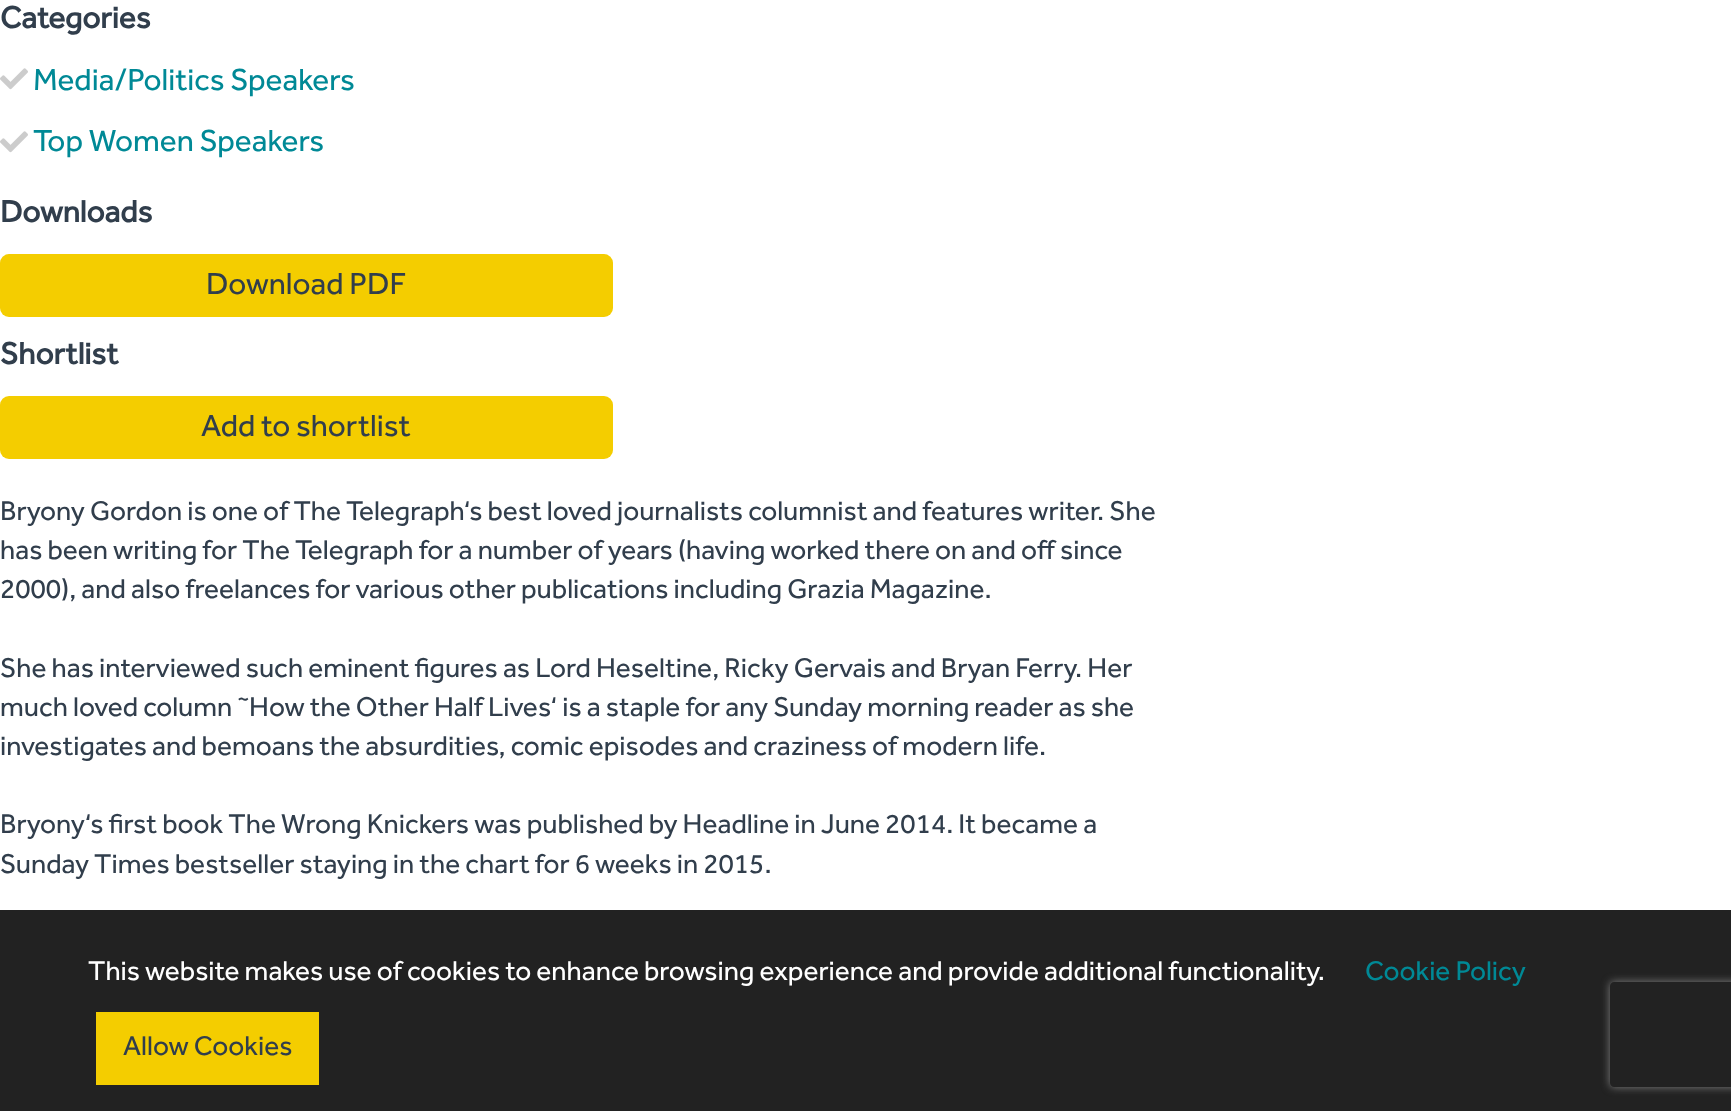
<svg xmlns="http://www.w3.org/2000/svg" width="1731" height="1111" viewBox="0 0 1731 1111">
  <defs>
    <clipPath id="clip1"><path d="M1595 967H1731V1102H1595ZM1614 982H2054C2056 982 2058 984 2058 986V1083C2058 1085 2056 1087 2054 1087H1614C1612 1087 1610 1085 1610 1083V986C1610 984 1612 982 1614 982Z" clip-rule="evenodd"/></clipPath>
  </defs>
  <rect width="100%" height="100%" fill="rgb(255,255,255)"/>
  <text x="0" y="28" font-family="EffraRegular" font-size="31.5" font-weight="bold" fill="rgb(49,62,76)">Categories</text>
  <image x="0" y="68" width="28" height="22" href="pic1.png"/>
  <text x="33" y="90" font-family="EffraRegular" font-size="31.5" fill="rgb(0,137,150)">Media/Politics Speakers</text>
  <image x="0" y="131" width="28" height="22" href="pic1.png"/>
  <text x="33" y="151" font-family="EffraRegular" font-size="31.5" fill="rgb(0,137,150)">Top Women Speakers</text>
  <text x="0" y="222" font-family="EffraRegular" font-size="31.5" font-weight="bold" fill="rgb(49,62,76)">Downloads</text>
  <rect x="0" y="254" width="613" height="63" rx="9" fill="rgb(244,205,0)"/>
  <text x="206" y="294" font-family="EffraRegular" font-size="31.5" fill="rgb(49,62,76)">Download PDF</text>
  <text x="0" y="364" font-family="EffraRegular" font-size="31.5" font-weight="bold" fill="rgb(49,62,76)">Shortlist</text>
  <rect x="0" y="396" width="613" height="63" rx="9" fill="rgb(244,205,0)"/>
  <text x="201" y="436" font-family="EffraRegular" font-size="31.5" fill="rgb(49,62,76)">Add to shortlist</text>
  <g font-family="EffraRegular" font-size="28" fill="rgb(49,62,76)">
    <text>
      <tspan x="0" y="520">Bryony Gordon is one of The Telegraph‘s best loved journalists columnist and features writer. She</tspan>
      <tspan x="0" y="559">has been writing for The Telegraph for a number of years (having worked there on and off since</tspan>
      <tspan x="0" y="598">2000), and also freelances for various other publications including Grazia Magazine.</tspan>
    </text>
    <text>
      <tspan x="0" y="677">She has interviewed such eminent figures as Lord Heseltine, Ricky Gervais and Bryan Ferry. Her</tspan>
      <tspan x="0" y="716">much loved column ˜How the Other Half Lives‘ is a staple for any Sunday morning reader as she</tspan>
      <tspan x="0" y="755">investigates and bemoans the absurdities, comic episodes and craziness of modern life.</tspan>
    </text>
    <text>
      <tspan x="0" y="833">Bryony‘s first book The Wrong Knickers was published by Headline in June 2014. It became a</tspan>
      <tspan x="0" y="873">Sunday Times bestseller staying in the chart for 6 weeks in 2015.</tspan>
    </text>
  </g>
  <rect x="0" y="910" width="1731" height="201" fill="rgb(34,34,34)"/>
  <text x="88" y="980" font-family="EffraRegular" font-size="28" fill="rgb(255,255,255)">This website makes use of cookies to enhance browsing experience and provide additional functionality.</text>
  <text x="1365" y="980" font-family="EffraRegular" font-size="28" fill="rgb(0,137,150)">Cookie Policy</text>
  <rect x="96" y="1012" width="223" height="73" fill="rgb(244,205,0)"/>
  <text x="123" y="1055" font-family="EffraRegular" font-size="28" fill="rgb(49,62,76)">Allow Cookies</text>
  <g clip-path="url(#clip1)">
    <rect x="1610" y="982" width="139" height="105" rx="4" fill="rgb(128,128,128)" filter="blur(4.5px)"/>
  </g>
</svg>
